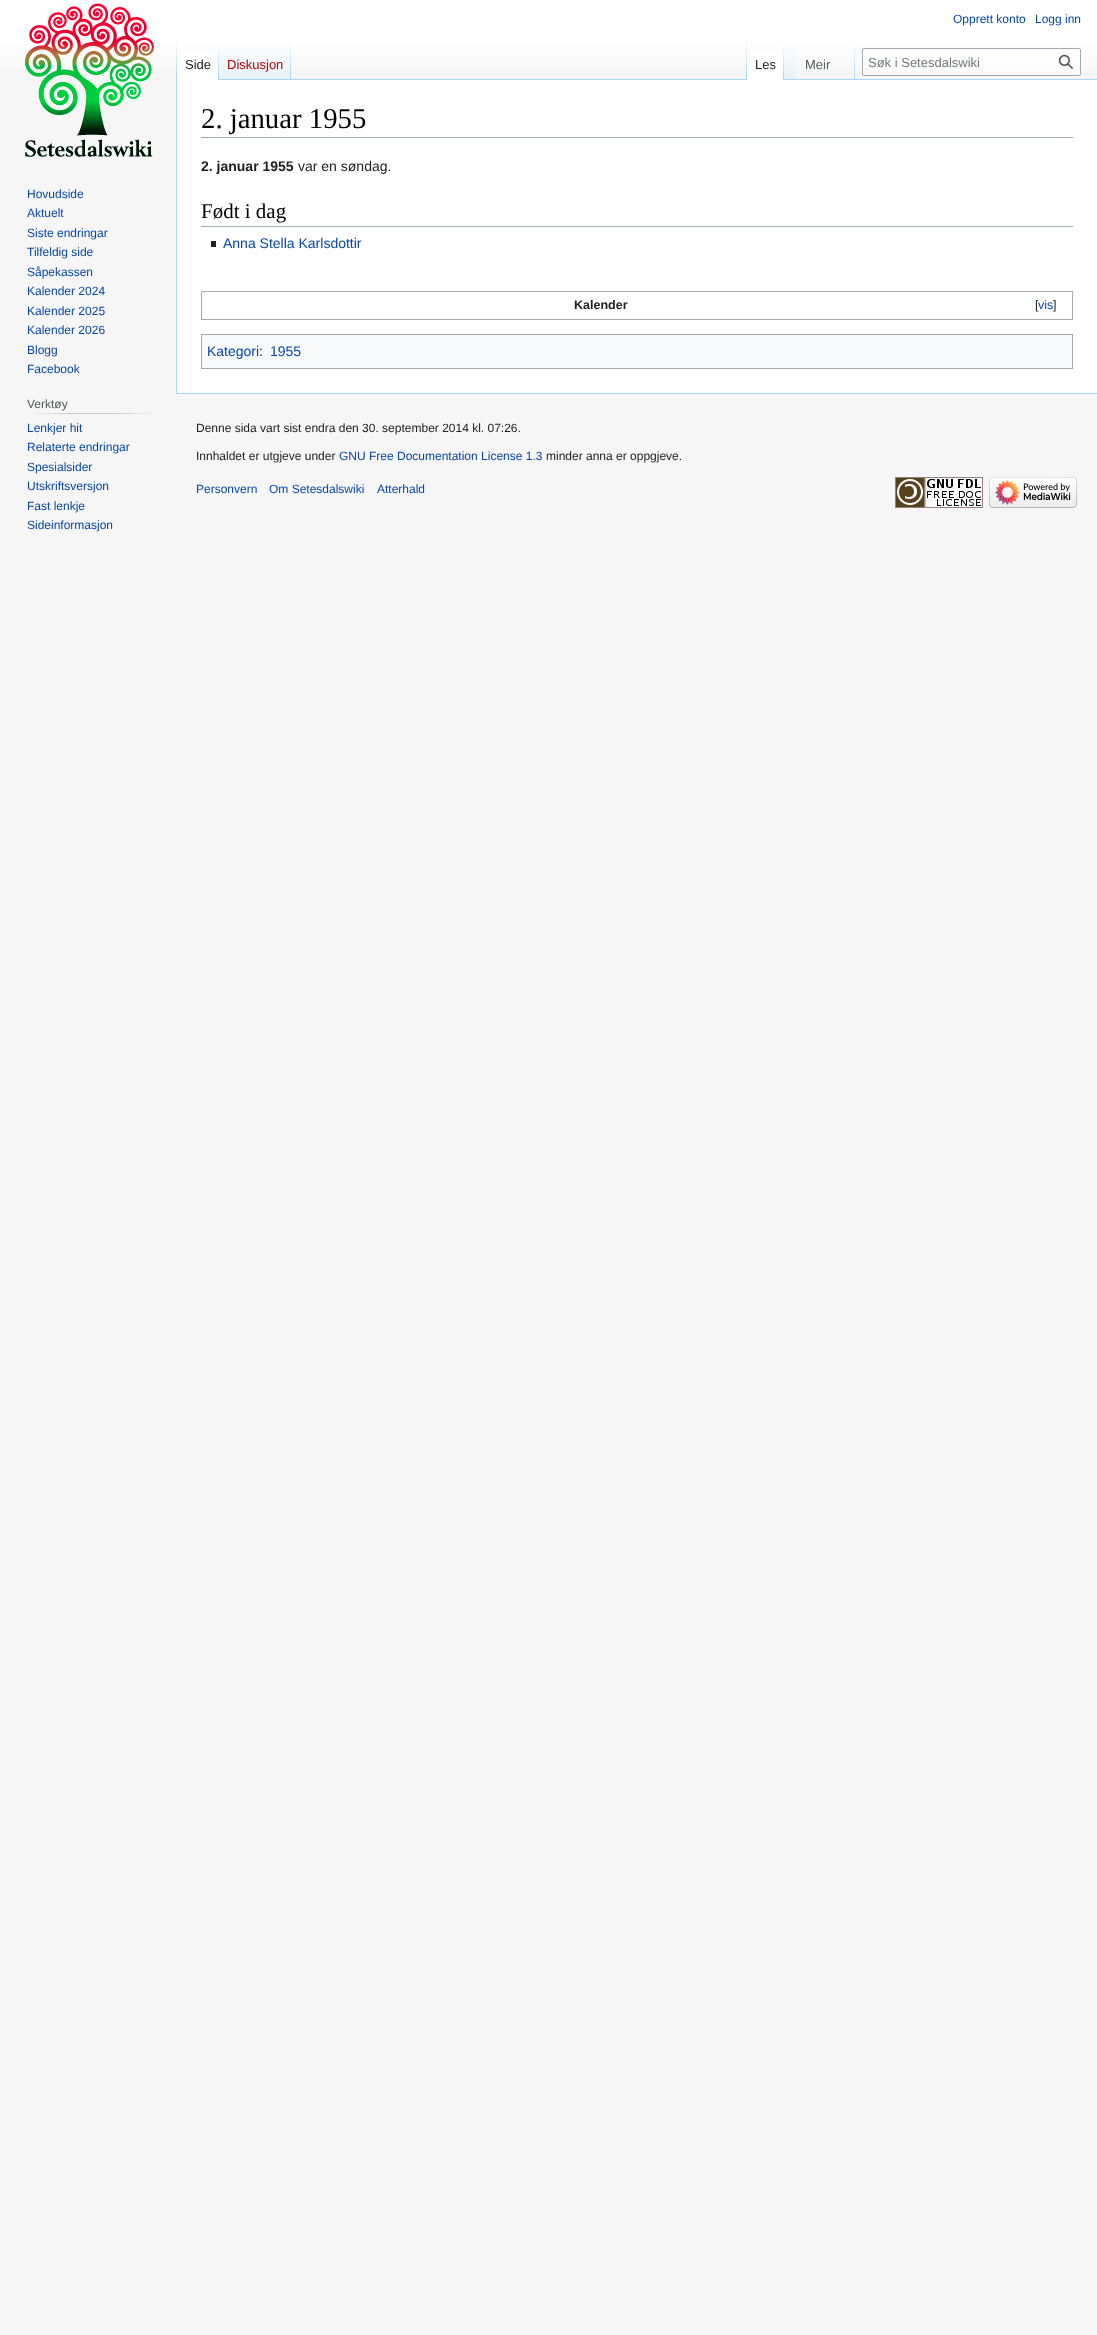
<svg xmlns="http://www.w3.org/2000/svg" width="1097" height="2335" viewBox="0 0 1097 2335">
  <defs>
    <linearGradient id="g1" gradientUnits="userSpaceOnUse" x1="549" y1="0" x2="549" y2="80"><stop offset="0.5" stop-color="rgb(255,255,255)"/><stop offset="1" stop-color="rgb(246,246,246)"/></linearGradient>
    <linearGradient id="g2" gradientUnits="userSpaceOnUse" x1="177" y1="40" x2="177" y2="80"><stop offset="0" stop-color="rgb(167,215,249)" stop-opacity="0"/><stop offset="1" stop-color="rgb(167,215,249)"/></linearGradient>
    <linearGradient id="g3" gradientUnits="userSpaceOnUse" x1="219" y1="40" x2="219" y2="80"><stop offset="0" stop-color="rgb(255,255,255)"/><stop offset="1" stop-color="rgb(167,215,249)"/></linearGradient>
    <linearGradient id="g4" gradientUnits="userSpaceOnUse" x1="255" y1="80" x2="255" y2="40"><stop offset="0" stop-color="rgb(119,193,246)"/><stop offset="0.03" stop-color="rgb(232,242,248)"/><stop offset="1" stop-color="rgb(255,255,255)"/></linearGradient>
    <linearGradient id="g5" gradientUnits="userSpaceOnUse" x1="291" y1="40" x2="291" y2="80"><stop offset="0" stop-color="rgb(167,215,249)" stop-opacity="0"/><stop offset="1" stop-color="rgb(167,215,249)"/></linearGradient>
    <linearGradient id="g6" gradientUnits="userSpaceOnUse" x1="747" y1="40" x2="747" y2="80"><stop offset="0" stop-color="rgb(167,215,249)" stop-opacity="0"/><stop offset="1" stop-color="rgb(167,215,249)"/></linearGradient>
    <linearGradient id="g7" gradientUnits="userSpaceOnUse" x1="784" y1="40" x2="784" y2="80"><stop offset="0" stop-color="rgb(255,255,255)"/><stop offset="1" stop-color="rgb(167,215,249)"/></linearGradient>
    <linearGradient id="g8" gradientUnits="userSpaceOnUse" x1="791" y1="80" x2="791" y2="40"><stop offset="0" stop-color="rgb(119,193,246)"/><stop offset="0.03" stop-color="rgb(232,242,248)"/><stop offset="1" stop-color="rgb(255,255,255)"/></linearGradient>
    <linearGradient id="g9" gradientUnits="userSpaceOnUse" x1="855" y1="40" x2="855" y2="80"><stop offset="0" stop-color="rgb(167,215,249)" stop-opacity="0"/><stop offset="1" stop-color="rgb(167,215,249)"/></linearGradient>
    <linearGradient id="g10" gradientUnits="userSpaceOnUse" x1="27" y1="414" x2="158" y2="414"><stop offset="0" stop-color="rgb(246,246,246)"/><stop offset="0.33" stop-color="rgb(200,204,209)"/><stop offset="0.66" stop-color="rgb(200,204,209)"/><stop offset="1" stop-color="rgb(246,246,246)"/></linearGradient>
  </defs>
  <rect width="100%" height="100%" fill="rgb(246,246,246)"/>
  <rect x="0" y="0" width="1097" height="69" fill="url(#g1)"/>
  <g font-family="Liberation Sans" font-size="12" fill="rgb(6,69,173)">
    <text x="953" y="23">Opprett konto</text>
    <text x="1035" y="23">Logg inn</text>
  </g>
  <rect x="176" y="393" width="921" height="1" fill="rgb(167,215,249)"/>
  <rect x="176" y="79" width="1" height="315" fill="rgb(167,215,249)"/>
  <rect x="176" y="40" width="1" height="40" fill="url(#g2)"/>
  <rect x="177" y="51" width="41" height="29" fill="rgb(255,255,255)"/>
  <rect x="218" y="40" width="1" height="40" fill="url(#g3)"/>
  <text x="185" y="69" font-family="Liberation Sans" font-size="13" fill="rgb(32,33,34)">Side</text>
  <rect x="219" y="46" width="72" height="34" fill="url(#g4)"/>
  <rect x="290" y="40" width="1" height="40" fill="url(#g5)"/>
  <text x="227" y="69" font-family="Liberation Sans" font-size="13" fill="rgb(186,0,0)">Diskusjon</text>
  <rect x="291" y="79" width="806" height="1" fill="rgb(167,215,249)"/>
  <rect x="746" y="40" width="1" height="40" fill="url(#g6)"/>
  <rect x="747" y="51" width="36" height="29" fill="rgb(255,255,255)"/>
  <rect x="783" y="40" width="1" height="40" fill="url(#g7)"/>
  <text x="755" y="69" font-family="Liberation Sans" font-size="13" fill="rgb(32,33,34)">Les</text>
  <rect x="784" y="46" width="13" height="33" fill="url(#g8)"/>
  <rect x="854" y="40" width="1" height="40" fill="url(#g9)"/>
  <text x="805" y="69" font-family="Liberation Sans" font-size="13" fill="rgb(84,89,93)">Meir</text>
  <rect x="862.5" y="48.5" width="218" height="27" rx="1.5" fill="rgba(255,255,255,0.5)" stroke="rgb(162,169,177)"/>
  <text x="868" y="67" font-family="Liberation Sans" font-size="13" fill="rgb(114,119,125)">Søk i Setesdalswiki</text>
  <image x="1058" y="54" width="15" height="15" href="pic1.png"/>
  <image x="25" y="3" width="129" height="154" href="pic2.png"/>
  <g font-family="Liberation Sans" font-size="12" fill="rgb(6,69,173)">
    <text>
      <tspan x="27" y="198">Hovudside</tspan>
      <tspan x="27" y="217">Aktuelt</tspan>
      <tspan x="27" y="237">Siste endringar</tspan>
      <tspan x="27" y="256">Tilfeldig side</tspan>
      <tspan x="27" y="276">Såpekassen</tspan>
      <tspan x="27" y="295">Kalender 2024</tspan>
      <tspan x="27" y="315">Kalender 2025</tspan>
      <tspan x="27" y="334">Kalender 2026</tspan>
      <tspan x="27" y="354">Blogg</tspan>
      <tspan x="27" y="373">Facebook</tspan>
    </text>
  </g>
  <rect x="27" y="413" width="131" height="1" fill="url(#g10)"/>
  <text x="27" y="408" font-family="Liberation Sans" font-size="12" fill="rgb(84,89,93)">Verktøy</text>
  <g font-family="Liberation Sans" font-size="12" fill="rgb(6,69,173)">
    <text>
      <tspan x="27" y="432">Lenkjer hit</tspan>
      <tspan x="27" y="451">Relaterte endringar</tspan>
      <tspan x="27" y="471">Spesialsider</tspan>
      <tspan x="27" y="490">Utskriftsversjon</tspan>
      <tspan x="27" y="510">Fast lenkje</tspan>
      <tspan x="27" y="529">Sideinformasjon</tspan>
    </text>
  </g>
  <rect x="177" y="80" width="920" height="313" fill="rgb(255,255,255)"/>
  <rect x="201" y="137" width="872" height="1" fill="rgb(162,169,177)"/>
  <text x="201" y="128" font-family="Liberation Serif" font-size="28.75" fill="rgb(0,0,0)">2. januar 1955</text>
  <text x="201" y="171" font-family="Liberation Sans" font-size="14" font-weight="bold" fill="rgb(32,33,34)">2. januar 1955</text>
  <text x="298" y="171" font-family="Liberation Sans" font-size="14" fill="rgb(32,33,34)">var en søndag.</text>
  <rect x="201" y="226" width="872" height="1" fill="rgb(162,169,177)"/>
  <text x="201" y="218" font-family="Liberation Serif" font-size="21" fill="rgb(0,0,0)">Født i dag</text>
  <rect x="211" y="241" width="5" height="6" fill="rgb(32,33,34)"/>
  <text x="223" y="248" font-family="Liberation Sans" font-size="14" fill="rgb(6,69,173)">Anna Stella Karlsdottir</text>
  <rect x="201.5" y="291.5" width="871" height="28" fill="none" stroke="rgb(170,170,170)"/>
  <text x="574" y="309" font-family="Liberation Sans" font-size="12.5" font-weight="bold" fill="rgb(32,33,34)">Kalender</text>
  <text x="1035" y="309" font-family="Liberation Sans" font-size="12.5" fill="rgb(32,33,34)">[</text>
  <text x="1038" y="309" font-family="Liberation Sans" font-size="12.5" fill="rgb(6,69,173)">vis</text>
  <text x="1053" y="309" font-family="Liberation Sans" font-size="12.5" fill="rgb(32,33,34)">]</text>
  <rect x="201.5" y="334.5" width="871" height="34" fill="rgb(248,249,250)" stroke="rgb(162,169,177)"/>
  <text x="207" y="356" font-family="Liberation Sans" font-size="14" fill="rgb(6,69,173)">Kategori</text>
  <text x="259" y="356" font-family="Liberation Sans" font-size="14" fill="rgb(32,33,34)">:</text>
  <text x="270" y="356" font-family="Liberation Sans" font-size="14" fill="rgb(6,69,173)">1955</text>
  <g font-family="Liberation Sans" font-size="12" fill="rgb(32,33,34)">
    <text x="196" y="432">Denne sida vart sist endra den 30. september 2014 kl. 07:26.</text>
    <text x="196" y="460">Innhaldet er utgjeve under</text>
  </g>
  <text x="339" y="460" font-family="Liberation Sans" font-size="12" fill="rgb(6,69,173)">GNU Free Documentation License 1.3</text>
  <text x="546" y="460" font-family="Liberation Sans" font-size="12" fill="rgb(32,33,34)">minder anna er oppgjeve.</text>
  <g font-family="Liberation Sans" font-size="12" fill="rgb(6,69,173)">
    <text x="196" y="493">Personvern</text>
    <text x="269" y="493">Om Setesdalswiki</text>
    <text x="377" y="493">Atterhald</text>
  </g>
  <image x="895" y="477" width="88" height="31" href="pic3.png"/>
  <image x="989" y="477" width="88" height="31" href="pic4.png"/>
</svg>
